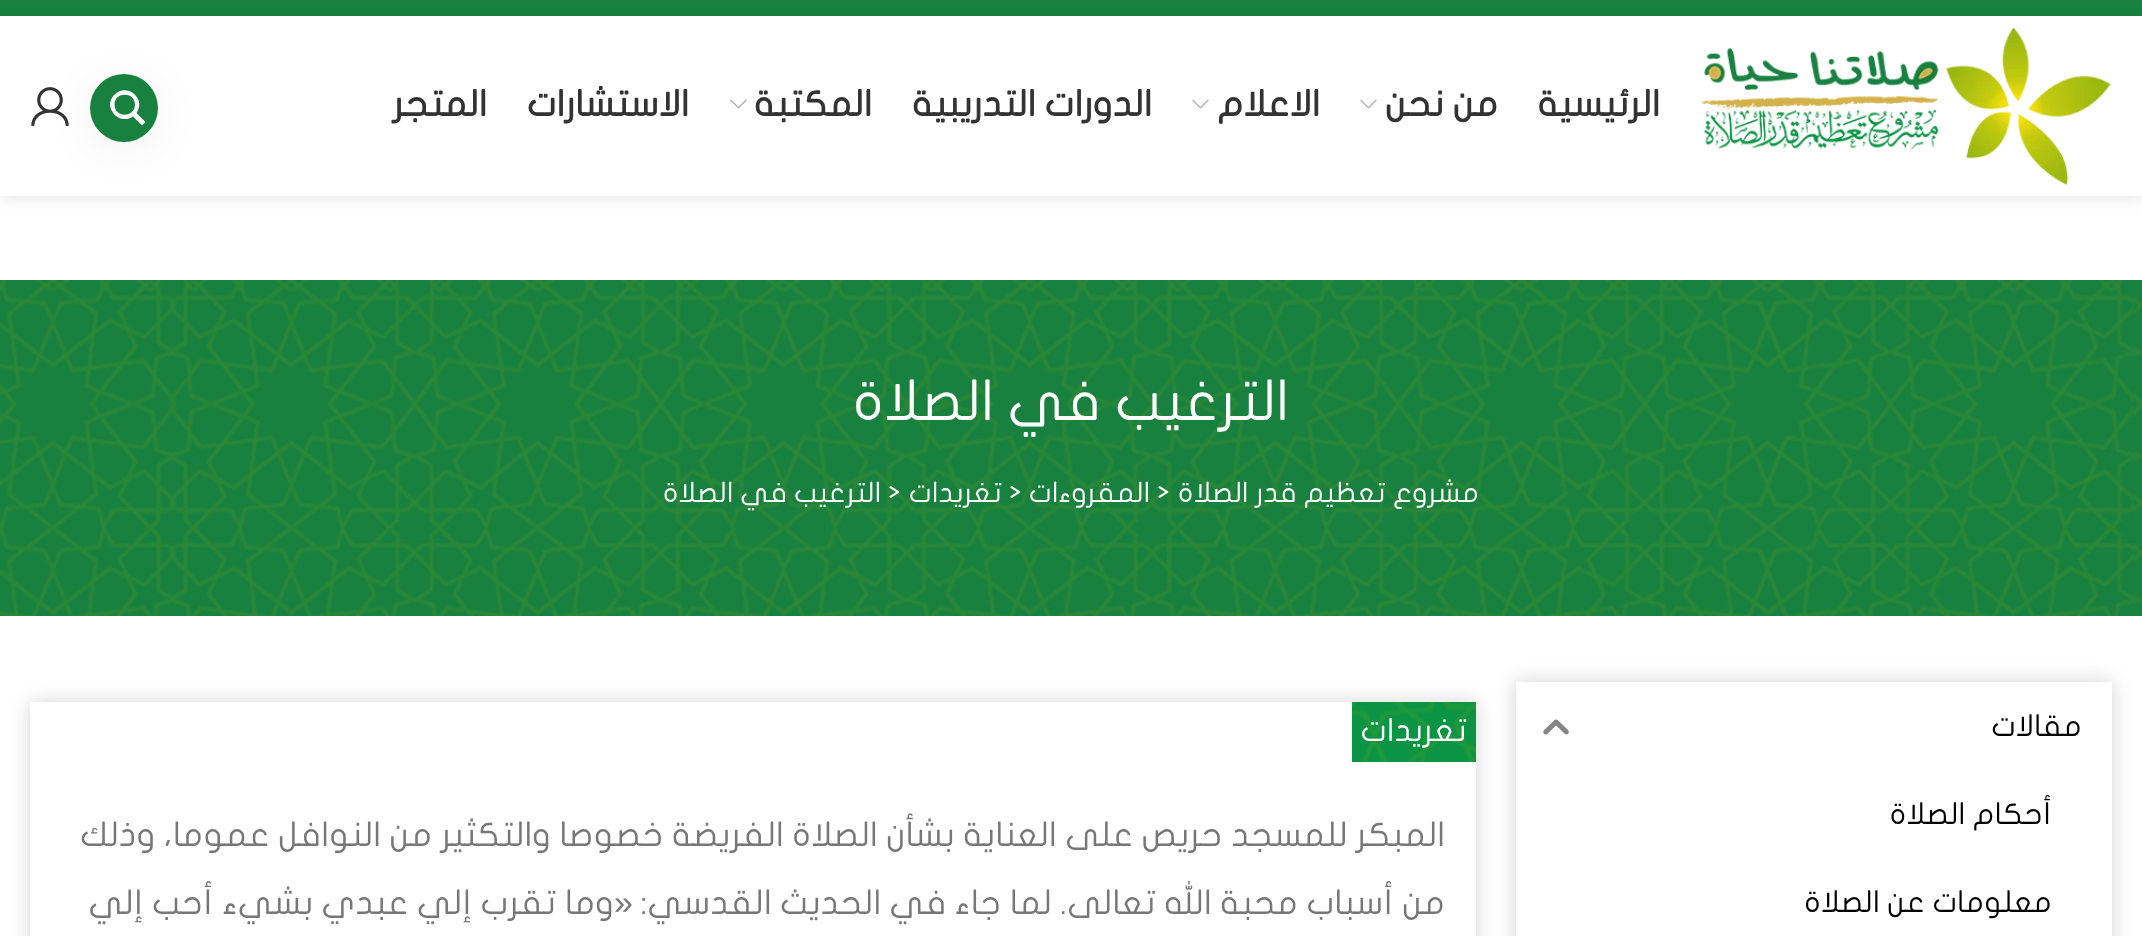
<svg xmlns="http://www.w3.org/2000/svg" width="2142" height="936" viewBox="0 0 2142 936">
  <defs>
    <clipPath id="clip1"><path d="M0 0H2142V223H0ZM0 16H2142V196H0Z" clip-rule="evenodd"/></clipPath>
    <clipPath id="clip2"><path d="M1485 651H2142V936H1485ZM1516 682H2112V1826H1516Z" clip-rule="evenodd"/></clipPath>
    <clipPath id="clip3"><path d="M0 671H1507V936H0ZM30 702H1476V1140H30Z" clip-rule="evenodd"/></clipPath>
  </defs>
  <rect width="100%" height="100%" fill="rgb(255,255,255)"/>
  <rect x="0" y="0" width="2142" height="16" fill="rgb(24,129,64)"/>
  <g clip-path="url(#clip1)">
    <rect x="0" y="18" width="2142" height="180" fill="rgba(0,0,0,0.1)" filter="blur(8px)"/>
  </g>
  <image x="1700" y="27" width="411" height="158" href="pic1.png"/>
  <g font-family="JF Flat" font-size="36" font-weight="bold" direction="rtl" fill="rgb(51,51,51)">
    <text x="1660" y="116">الرئيسية</text>
    <text x="1498" y="116">من نحن</text>
  </g>
  <image x="1360" y="99" width="17" height="10" href="pic2.png"/>
  <text x="1320" y="116" font-family="JF Flat" font-size="36" font-weight="bold" direction="rtl" fill="rgb(51,51,51)">الاعلام</text>
  <image x="1192" y="99" width="17" height="10" href="pic2.png"/>
  <g font-family="JF Flat" font-size="36" font-weight="bold" direction="rtl" fill="rgb(51,51,51)">
    <text x="1152" y="116">الدورات التدريبية</text>
    <text x="872" y="116">المكتبة</text>
  </g>
  <image x="730" y="99" width="17" height="10" href="pic2.png"/>
  <g font-family="JF Flat" font-size="36" font-weight="bold" direction="rtl" fill="rgb(51,51,51)">
    <text x="689" y="116">الاستشارات</text>
    <text x="487" y="116">المتجر</text>
  </g>
  <image x="31" y="87" width="38" height="39" href="pic3.png"/>
  <rect x="116" y="108" width="16" height="16" rx="8" fill="rgb(0,0,0)" filter="blur(28px)"/>
  <circle cx="124" cy="108" r="34" fill="rgb(24,129,64)"/>
  <path d="M145.5 122L136.5 113C146.5 99 127.5 82 114.5 94.5C102 107 119 126 133 116.5L142 125.5ZM114.5 104.5C114.5 91.5 135 91.5 135 104.5C135 118 114.5 118 114.5 104.5Z" fill="rgb(255,255,255)"/>
  <rect x="0" y="280" width="2142" height="336" fill="rgb(24,129,64)"/>
  <image x="0" y="280" width="2142" height="336" href="pic4.png"/>
  <text x="1289" y="420" font-family="JF Flat" font-size="56" direction="rtl" fill="rgb(255,255,255)">الترغيب في الصلاة</text>
  <text x="1479" y="502" font-family="JF Flat" font-size="28" direction="rtl" fill="rgb(255,255,255)">مشروع تعظيم قدر الصلاة</text>
  <text x="1157" y="502" font-family="JF Flat" font-size="28" fill="rgb(255,255,255)">&gt;</text>
  <text x="1150" y="502" font-family="JF Flat" font-size="28" direction="rtl" fill="rgb(255,255,255)">المقروءات</text>
  <text x="1009" y="502" font-family="JF Flat" font-size="28" fill="rgb(255,255,255)">&gt;</text>
  <text x="1002" y="502" font-family="JF Flat" font-size="28" direction="rtl" fill="rgb(255,255,255)">تغريدات</text>
  <text x="888" y="502" font-family="JF Flat" font-size="28" fill="rgb(255,255,255)">&gt;</text>
  <text x="881" y="502" font-family="JF Flat" font-size="28" direction="rtl" fill="rgb(255,255,255)">الترغيب في الصلاة</text>
  <g clip-path="url(#clip2)">
    <rect x="1516" y="682" width="596" height="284" fill="rgba(163,163,163,0.5)" filter="blur(10px)"/>
  </g>
  <text x="2082" y="736" font-family="JF Flat" font-size="30" direction="rtl" fill="rgb(0,0,0)">مقالات</text>
  <image x="1543" y="719" width="26" height="16" href="pic5.png"/>
  <g font-family="JF Flat" font-size="30" direction="rtl" fill="rgb(0,0,0)">
    <text x="2052" y="824">أحكام الصلاة</text>
    <text x="2052" y="912">معلومات عن الصلاة</text>
  </g>
  <g clip-path="url(#clip3)">
    <rect x="30" y="702" width="1446" height="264" fill="rgba(176,176,176,0.5)" filter="blur(10px)"/>
  </g>
  <rect x="1352" y="702" width="124" height="60" fill="rgb(11,148,68)"/>
  <image x="1352" y="702" width="124" height="60" href="pic6.png"/>
  <text x="1467" y="741" font-family="JF Flat" font-size="32" direction="rtl" fill="rgb(255,255,255)">تغريدات</text>
  <g font-family="JF Flat" font-size="34" direction="rtl" fill="rgb(119,119,119)">
    <text x="1445" y="846">المبكر للمسجد حريص على العناية بشأن الصلاة الفريضة خصوصا والتكثير من النوافل عموما، وذلك</text>
    <text x="1445" y="914">من أسباب محبة الله تعالى. لما جاء في الحديث القدسي:</text>
  </g>
  <text x="633" y="914" font-family="Liberation Sans" font-size="34" direction="rtl" fill="rgb(119,119,119)">«</text>
  <text x="614" y="914" font-family="JF Flat" font-size="34" direction="rtl" fill="rgb(119,119,119)">وما تقرب إلي عبدي بشيء أحب إلي</text>
</svg>
